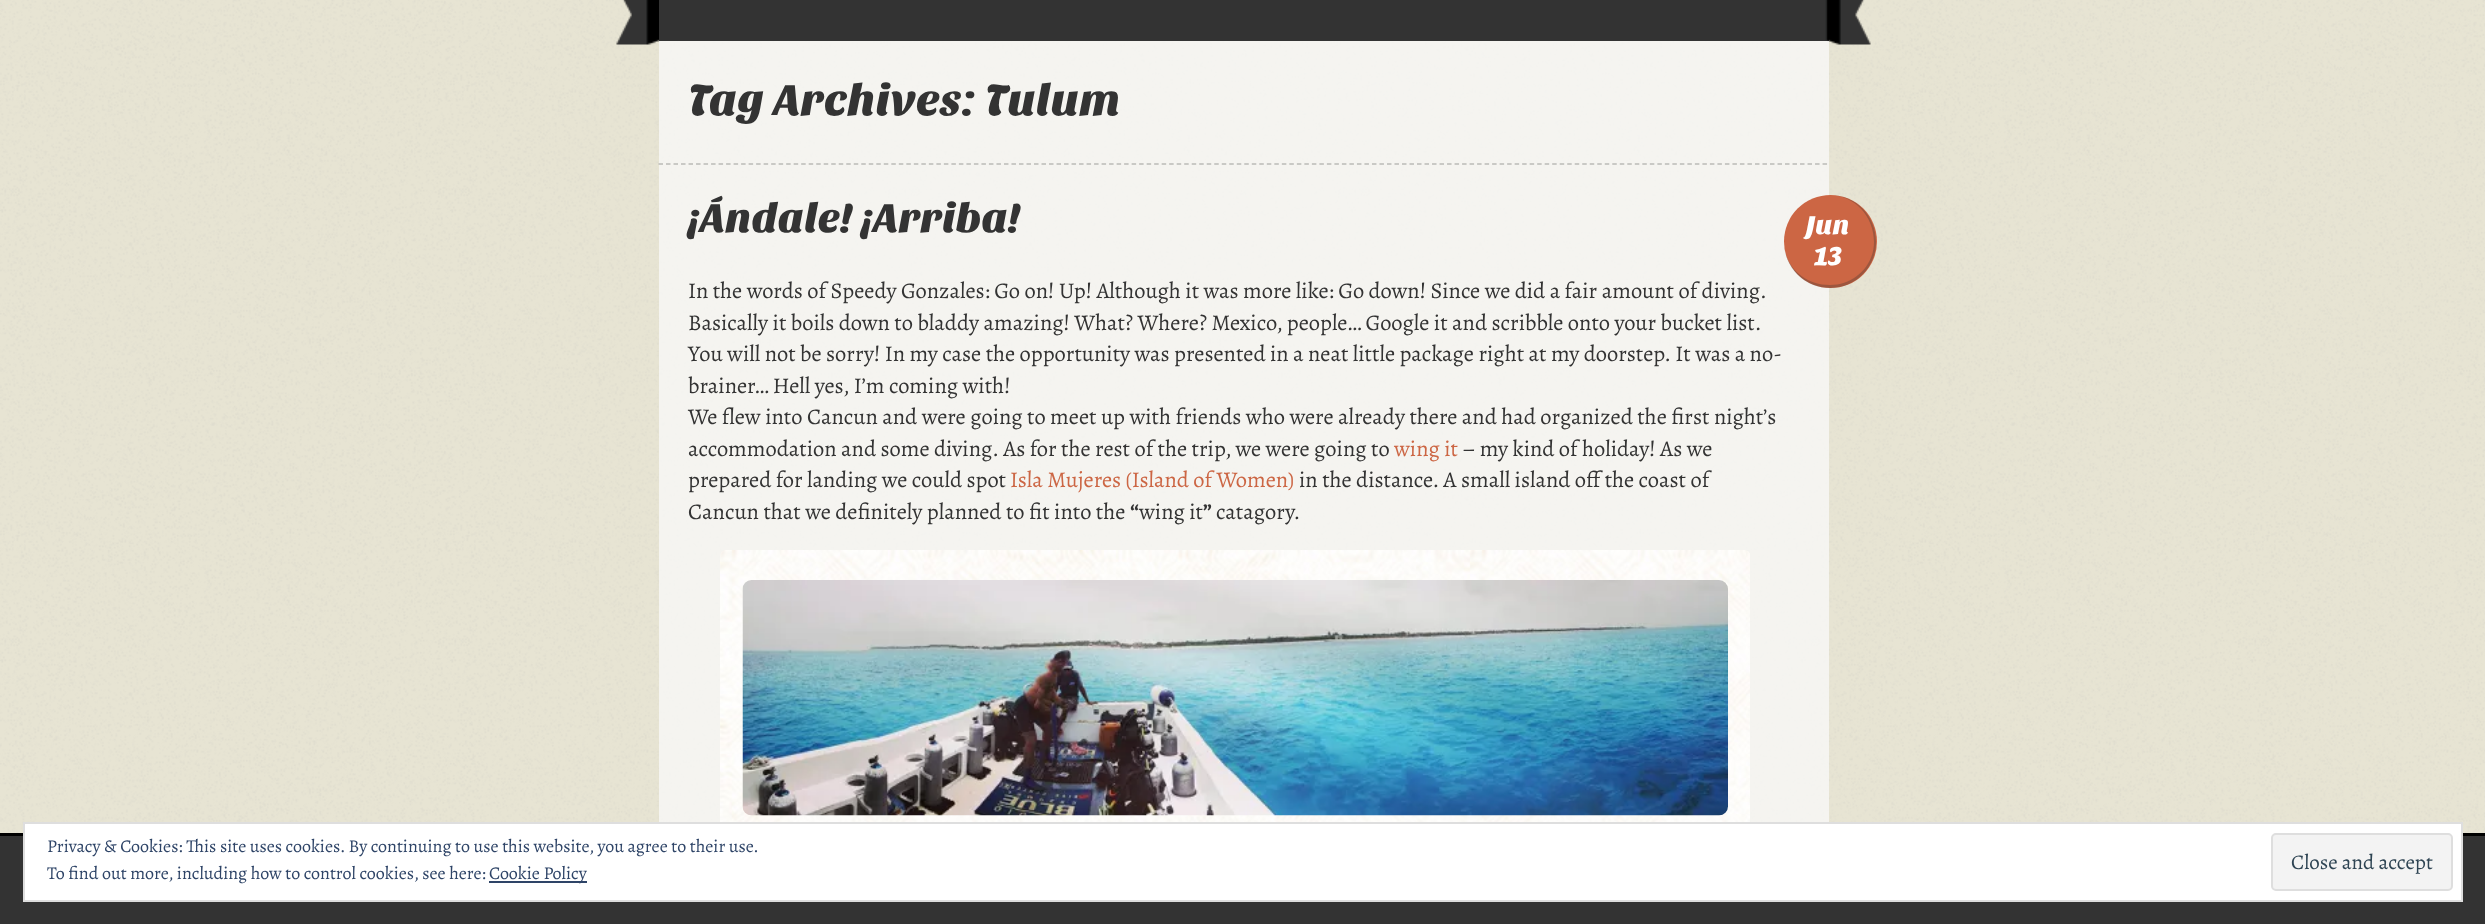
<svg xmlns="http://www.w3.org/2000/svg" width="2485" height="924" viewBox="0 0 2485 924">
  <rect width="100%" height="100%" fill="rgb(231,228,211)"/>
  <image x="0" y="0" width="2485" height="833" href="pic1.png"/>
  <image x="616" y="0" width="45" height="45" href="pic2.png"/>
  <rect x="659" y="0" width="1170" height="41" fill="rgb(51,51,51)"/>
  <image x="1825" y="0" width="46" height="45" href="pic3.png"/>
  <rect x="659" y="41" width="1170" height="781" fill="rgba(250,250,250,0.75)"/>
  <path d="M658.5 164H1828.5" fill="none" stroke="rgb(187,186,183)" stroke-width="1.5" stroke-dasharray="4.5 3.01"/>
  <text x="688" y="115" font-family="Sansita One" font-size="45" fill="rgb(51,51,51)">Tag Archives: Tulum</text>
  <text x="688" y="232" font-family="Sansita One" font-size="42" fill="rgb(51,51,51)">¡Ándale! ¡Arriba!</text>
  <circle cx="1830.5" cy="241.5" r="46.5" fill="rgb(204,102,68)"/>
  <path d="M1830 195C1856 195 1876 216 1876 242C1876 267 1856 288 1830 288C1804 288 1784 267 1784 242C1784 216 1804 195 1830 195ZM1830 195C1854 195 1874 216 1874 242C1874 266 1854 285 1830 285C1804 285 1784 266 1784 242C1784 216 1804 195 1830 195Z" fill="rgba(51,51,51,0.3)" fill-rule="evenodd"/>
  <g font-family="Sansita One" font-size="27" fill="rgb(255,255,255)">
    <text x="1806" y="234">Jun</text>
    <text x="1814" y="265">13</text>
  </g>
  <g font-family="Alegreya" font-size="22.5" fill="rgb(51,51,51)">
    <text>
      <tspan x="688" y="298">In the words of Speedy Gonzales: Go on! Up! Although it was more like: Go down! Since we did a fair amount of diving.</tspan>
      <tspan x="688" y="330">Basically it boils down to bladdy amazing! What? Where? Mexico, people… Google it and scribble onto your bucket list.</tspan>
      <tspan x="688" y="361">You will not be sorry! In my case the opportunity was presented in a neat little package right at my doorstep. It was a no-</tspan>
      <tspan x="688" y="393">brainer… Hell yes, I’m coming with!</tspan>
      <tspan x="688" y="424">We flew into Cancun and were going to meet up with friends who were already there and had organized the first night’s</tspan>
      <tspan x="688" y="456">accommodation and some diving. As for the rest of the trip, we were going to</tspan>
    </text>
  </g>
  <text x="1394" y="456" font-family="Alegreya" font-size="22.5" fill="rgb(204,102,68)">wing it</text>
  <g font-family="Alegreya" font-size="22.5" fill="rgb(51,51,51)">
    <text x="1462" y="456">– my kind of holiday! As we</text>
    <text x="688" y="487">prepared for landing we could spot</text>
  </g>
  <text x="1010" y="487" font-family="Alegreya" font-size="22.5" fill="rgb(204,102,68)">Isla Mujeres (Island of Women)</text>
  <g font-family="Alegreya" font-size="22.5" fill="rgb(51,51,51)">
    <text x="1299" y="487">in the distance. A small island off the coast of</text>
    <text x="688" y="519">Cancun that we definitely planned to fit into the</text>
  </g>
  <text x="1130" y="519" font-family="Alegreya" font-size="22.5" font-weight="bold" fill="rgb(51,51,51)">“</text>
  <text x="1139" y="519" font-family="Alegreya" font-size="22.5" fill="rgb(51,51,51)">wing it</text>
  <text x="1203" y="519" font-family="Alegreya" font-size="22.5" font-weight="bold" fill="rgb(51,51,51)">”</text>
  <text x="1216" y="519" font-family="Alegreya" font-size="22.5" fill="rgb(51,51,51)">catagory.</text>
  <image x="720" y="550" width="1030" height="272" href="pic4.png"/>
  <image x="742" y="580" width="986" height="236" href="pic5.png"/>
  <rect x="0" y="836" width="2485" height="88" fill="rgb(51,51,51)"/>
  <rect x="0" y="833" width="2485" height="3" fill="rgb(0,0,0)"/>
  <rect x="24" y="823" width="2438" height="78" fill="rgb(255,255,255)" stroke="rgb(222,222,222)" stroke-width="2"/>
  <g font-family="Alegreya" font-size="18" fill="rgb(46,68,103)">
    <text>
      <tspan x="47" y="852">Privacy &amp; Cookies: This site uses cookies. By continuing to use this website, you agree to their use.</tspan>
      <tspan x="47" y="879">To find out more, including how to control cookies, see here:</tspan>
    </text>
  </g>
  <rect x="489" y="881" width="98" height="2" fill="rgb(46,68,103)"/>
  <text x="489" y="879" font-family="Alegreya" font-size="18" fill="rgb(46,68,103)">Cookie Policy</text>
  <rect x="2272" y="834" width="180" height="56" rx="4" fill="rgb(243,243,243)" stroke="rgb(222,222,222)" stroke-width="2"/>
  <text x="2291" y="869" font-family="Alegreya" font-size="21" fill="rgb(46,68,83)">Close and accept</text>
</svg>
